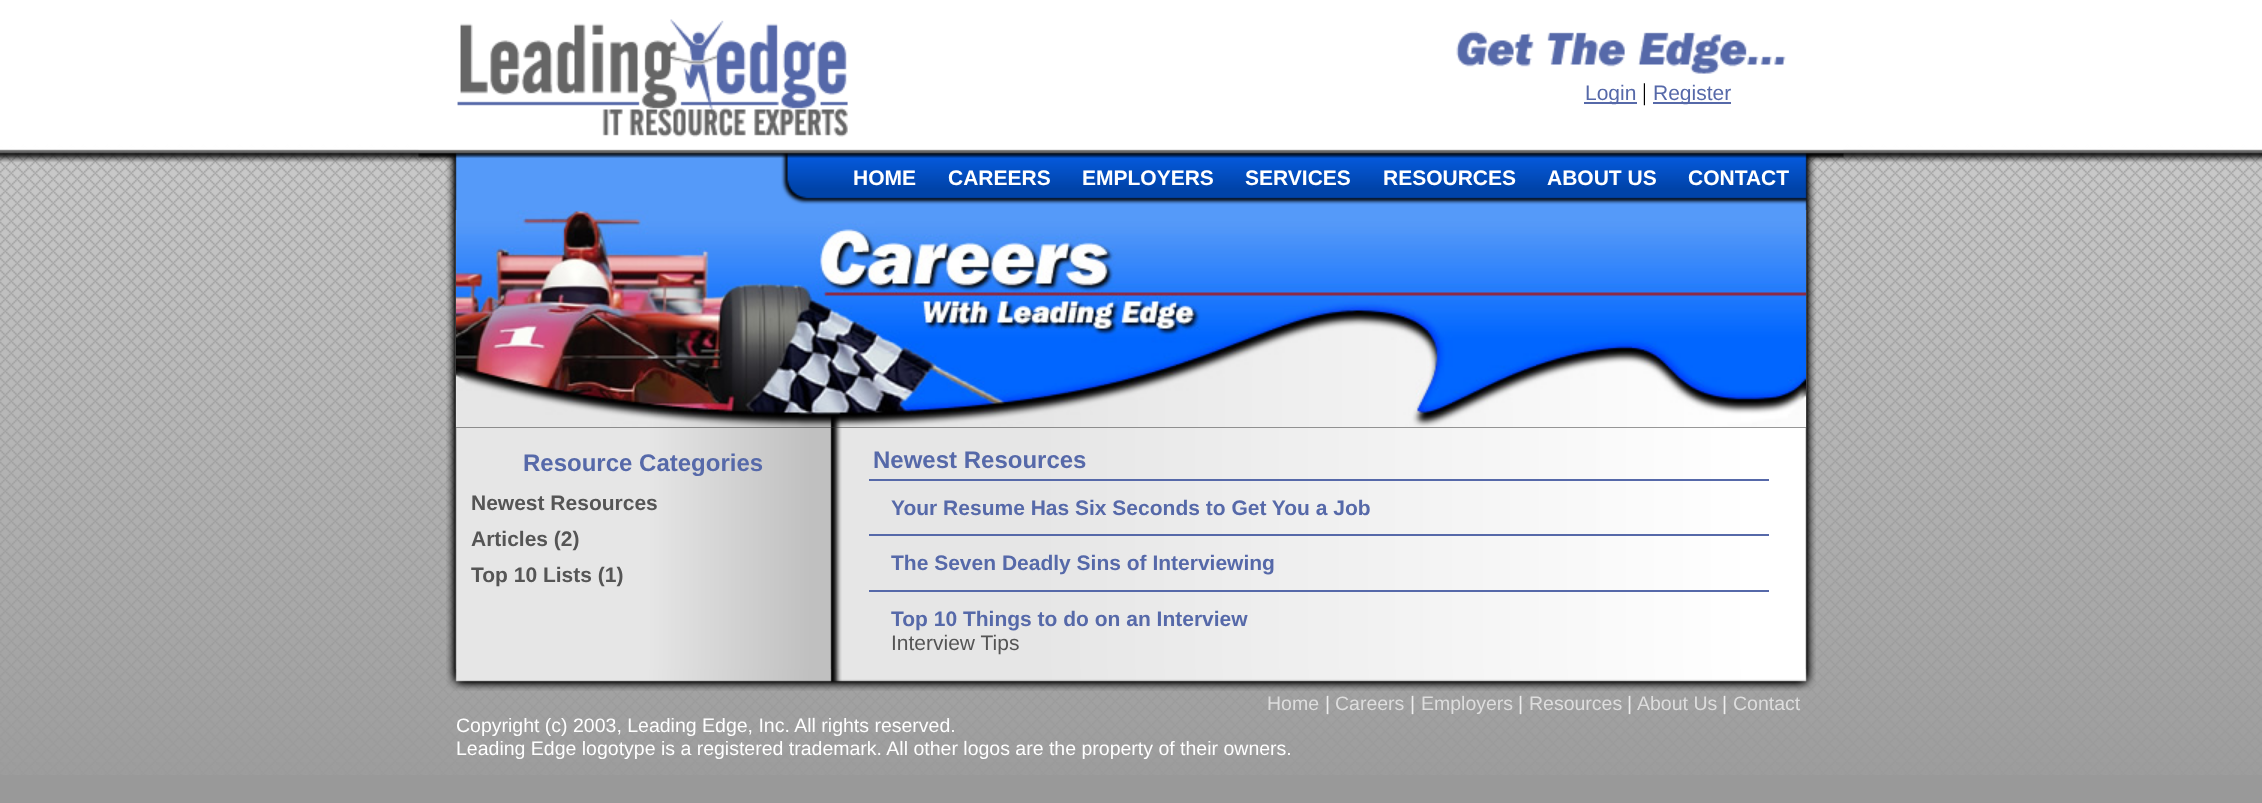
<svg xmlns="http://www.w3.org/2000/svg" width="2262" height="803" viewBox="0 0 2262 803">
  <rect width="100%" height="100%" fill="rgb(153,153,153)"/>
  <image x="0" y="0" width="2262" height="775" href="pic1.png"/>
  <image x="418" y="19" width="1426" height="191" href="pic2.png"/>
  <rect x="1584" y="102" width="53" height="2" fill="rgb(86,105,169)"/>
  <text x="1585" y="100" font-family="Liberation Sans" font-size="21" fill="rgb(86,105,169)">Login</text>
  <text x="1642" y="100" font-family="Liberation Serif" font-size="24" fill="rgb(0,0,0)">|</text>
  <rect x="1653" y="102" width="78" height="2" fill="rgb(86,105,169)"/>
  <text x="1653" y="100" font-family="Liberation Sans" font-size="21" fill="rgb(86,105,169)">Register</text>
  <g font-family="Liberation Sans" font-size="21" font-weight="bold" fill="rgb(255,255,255)">
    <text x="853" y="185">HOME</text>
    <text x="948" y="185">CAREERS</text>
    <text x="1082" y="185">EMPLOYERS</text>
    <text x="1245" y="185">SERVICES</text>
    <text x="1383" y="185">RESOURCES</text>
    <text x="1547" y="185">ABOUT US</text>
    <text x="1688" y="185">CONTACT</text>
  </g>
  <image x="446" y="210" width="1370" height="459" href="pic3.png"/>
  <rect x="456" y="427" width="1350" height="1" fill="rgb(51,51,51)"/>
  <image x="456" y="210" width="1350" height="218" href="pic4.png"/>
  <text x="523" y="471" font-family="Liberation Sans" font-size="24" font-weight="bold" fill="rgb(86,105,169)">Resource Categories</text>
  <g font-family="Liberation Sans" font-size="21" font-weight="bold" fill="rgb(85,85,85)">
    <text>
      <tspan x="471" y="510">Newest Resources</tspan>
      <tspan x="471" y="546">Articles (2)</tspan>
      <tspan x="471" y="582">Top 10 Lists (1)</tspan>
    </text>
  </g>
  <text x="873" y="468" font-family="Liberation Sans" font-size="24" font-weight="bold" fill="rgb(86,105,169)">Newest Resources</text>
  <rect x="869" y="479" width="900" height="2" fill="rgb(86,105,169)"/>
  <text x="891" y="515" font-family="Liberation Sans" font-size="21" font-weight="bold" fill="rgb(86,105,169)">Your Resume Has Six Seconds to Get You a Job</text>
  <rect x="869" y="534" width="900" height="2" fill="rgb(86,105,169)"/>
  <text x="891" y="570" font-family="Liberation Sans" font-size="21" font-weight="bold" fill="rgb(86,105,169)">The Seven Deadly Sins of Interviewing</text>
  <rect x="869" y="590" width="900" height="2" fill="rgb(86,105,169)"/>
  <text x="891" y="626" font-family="Liberation Sans" font-size="21" font-weight="bold" fill="rgb(86,105,169)">Top 10 Things to do on an Interview</text>
  <text x="891" y="650" font-family="Liberation Sans" font-size="21" fill="rgb(85,85,85)">Interview Tips</text>
  <image x="446" y="669" width="1370" height="22" href="pic5.png"/>
  <text x="1267" y="710" font-family="Liberation Sans" font-size="19.5" fill="rgb(221,221,221)">Home</text>
  <text x="1325" y="710" font-family="Liberation Sans" font-size="19.5" fill="rgb(238,238,238)">|</text>
  <text x="1335" y="710" font-family="Liberation Sans" font-size="19.5" fill="rgb(221,221,221)">Careers</text>
  <text x="1410" y="710" font-family="Liberation Sans" font-size="19.5" fill="rgb(238,238,238)">|</text>
  <text x="1421" y="710" font-family="Liberation Sans" font-size="19.5" fill="rgb(221,221,221)">Employers</text>
  <text x="1518" y="710" font-family="Liberation Sans" font-size="19.5" fill="rgb(238,238,238)">|</text>
  <text x="1529" y="710" font-family="Liberation Sans" font-size="19.5" fill="rgb(221,221,221)">Resources</text>
  <text x="1627" y="710" font-family="Liberation Sans" font-size="19.5" fill="rgb(238,238,238)">|</text>
  <text x="1637" y="710" font-family="Liberation Sans" font-size="19.5" fill="rgb(221,221,221)">About Us</text>
  <text x="1722" y="710" font-family="Liberation Sans" font-size="19.5" fill="rgb(238,238,238)">|</text>
  <text x="1733" y="710" font-family="Liberation Sans" font-size="19.5" fill="rgb(221,221,221)">Contact</text>
  <g font-family="Liberation Sans" font-size="19.5" fill="rgb(255,255,255)">
    <text>
      <tspan x="456" y="732">Copyright (c) 2003, Leading Edge, Inc. All rights reserved.</tspan>
      <tspan x="456" y="755">Leading Edge logotype is a registered trademark. All other logos are the property of their owners.</tspan>
    </text>
  </g>
</svg>
